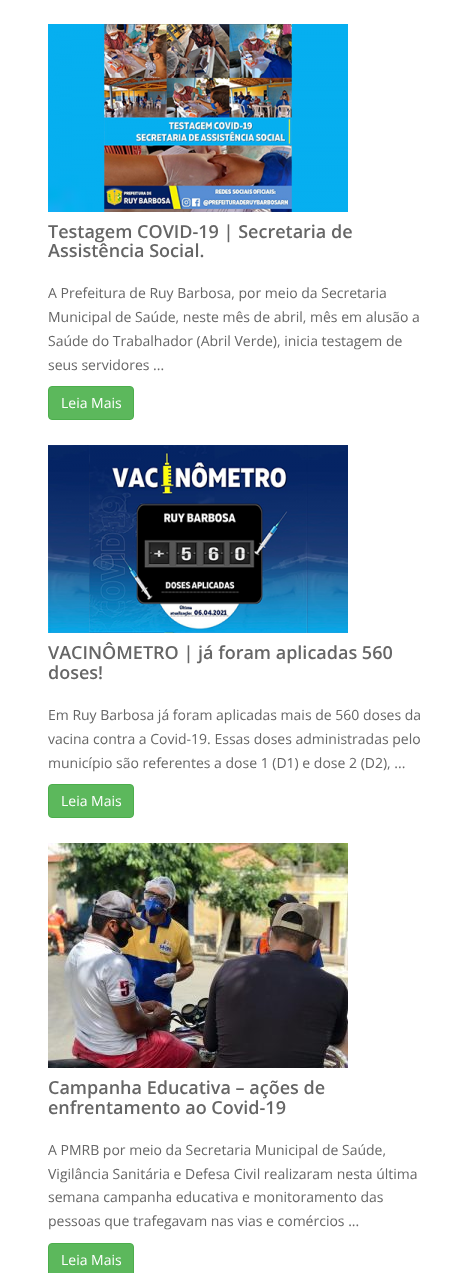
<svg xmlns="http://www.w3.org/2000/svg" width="476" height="1273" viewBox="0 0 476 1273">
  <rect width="100%" height="100%" fill="rgb(255,255,255)"/>
  <image x="48" y="24" width="300" height="188" href="pic1.png"/>
  <g font-family="Open Sans" font-size="18" font-weight="600" fill="rgb(102,102,102)">
    <text>
      <tspan x="48" y="238">Testagem COVID-19 | Secretaria de</tspan>
      <tspan x="48" y="257">Assistência Social.</tspan>
    </text>
  </g>
  <g font-family="Open Sans" font-size="14" fill="rgb(102,102,102)">
    <text>
      <tspan x="48" y="298">A Prefeitura de Ruy Barbosa, por meio da Secretaria</tspan>
      <tspan x="48" y="322">Municipal de Saúde, neste mês de abril, mês em alusão a</tspan>
      <tspan x="48" y="346">Saúde do Trabalhador (Abril Verde), inicia testagem de</tspan>
      <tspan x="48" y="370">seus servidores ...</tspan>
    </text>
  </g>
  <rect x="48.5" y="386.5" width="85" height="33" rx="3.5" fill="rgb(92,184,92)" stroke="rgb(76,174,76)"/>
  <text x="61" y="408" font-family="Open Sans" font-size="14" fill="rgb(255,255,255)">Leia Mais</text>
  <image x="48" y="445" width="300" height="188" href="pic2.png"/>
  <g font-family="Open Sans" font-size="18" font-weight="600" fill="rgb(102,102,102)">
    <text>
      <tspan x="48" y="659">VACINÔMETRO | já foram aplicadas 560</tspan>
      <tspan x="48" y="679">doses!</tspan>
    </text>
  </g>
  <g font-family="Open Sans" font-size="14" fill="rgb(102,102,102)">
    <text>
      <tspan x="48" y="720">Em Ruy Barbosa já foram aplicadas mais de 560 doses da</tspan>
      <tspan x="48" y="744">vacina contra a Covid-19. Essas doses administradas pelo</tspan>
      <tspan x="48" y="768">município são referentes a dose 1 (D1) e dose 2 (D2), ...</tspan>
    </text>
  </g>
  <rect x="48.5" y="784.5" width="85" height="33" rx="3.5" fill="rgb(92,184,92)" stroke="rgb(76,174,76)"/>
  <text x="61" y="806" font-family="Open Sans" font-size="14" fill="rgb(255,255,255)">Leia Mais</text>
  <image x="48" y="843" width="300" height="225" href="pic3.png"/>
  <g font-family="Open Sans" font-size="18" font-weight="600" fill="rgb(102,102,102)">
    <text>
      <tspan x="48" y="1094">Campanha Educativa – ações de</tspan>
      <tspan x="48" y="1114">enfrentamento ao Covid-19</tspan>
    </text>
  </g>
  <g font-family="Open Sans" font-size="14" fill="rgb(102,102,102)">
    <text>
      <tspan x="48" y="1155">A PMRB por meio da Secretaria Municipal de Saúde,</tspan>
      <tspan x="48" y="1179">Vigilância Sanitária e Defesa Civil realizaram nesta última</tspan>
      <tspan x="48" y="1202">semana campanha educativa e monitoramento das</tspan>
      <tspan x="48" y="1226">pessoas que trafegavam nas vias e comércios ...</tspan>
    </text>
  </g>
  <rect x="48.5" y="1243.5" width="85" height="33" rx="3.5" fill="rgb(92,184,92)" stroke="rgb(76,174,76)"/>
  <text x="61" y="1265" font-family="Open Sans" font-size="14" fill="rgb(255,255,255)">Leia Mais</text>
</svg>
